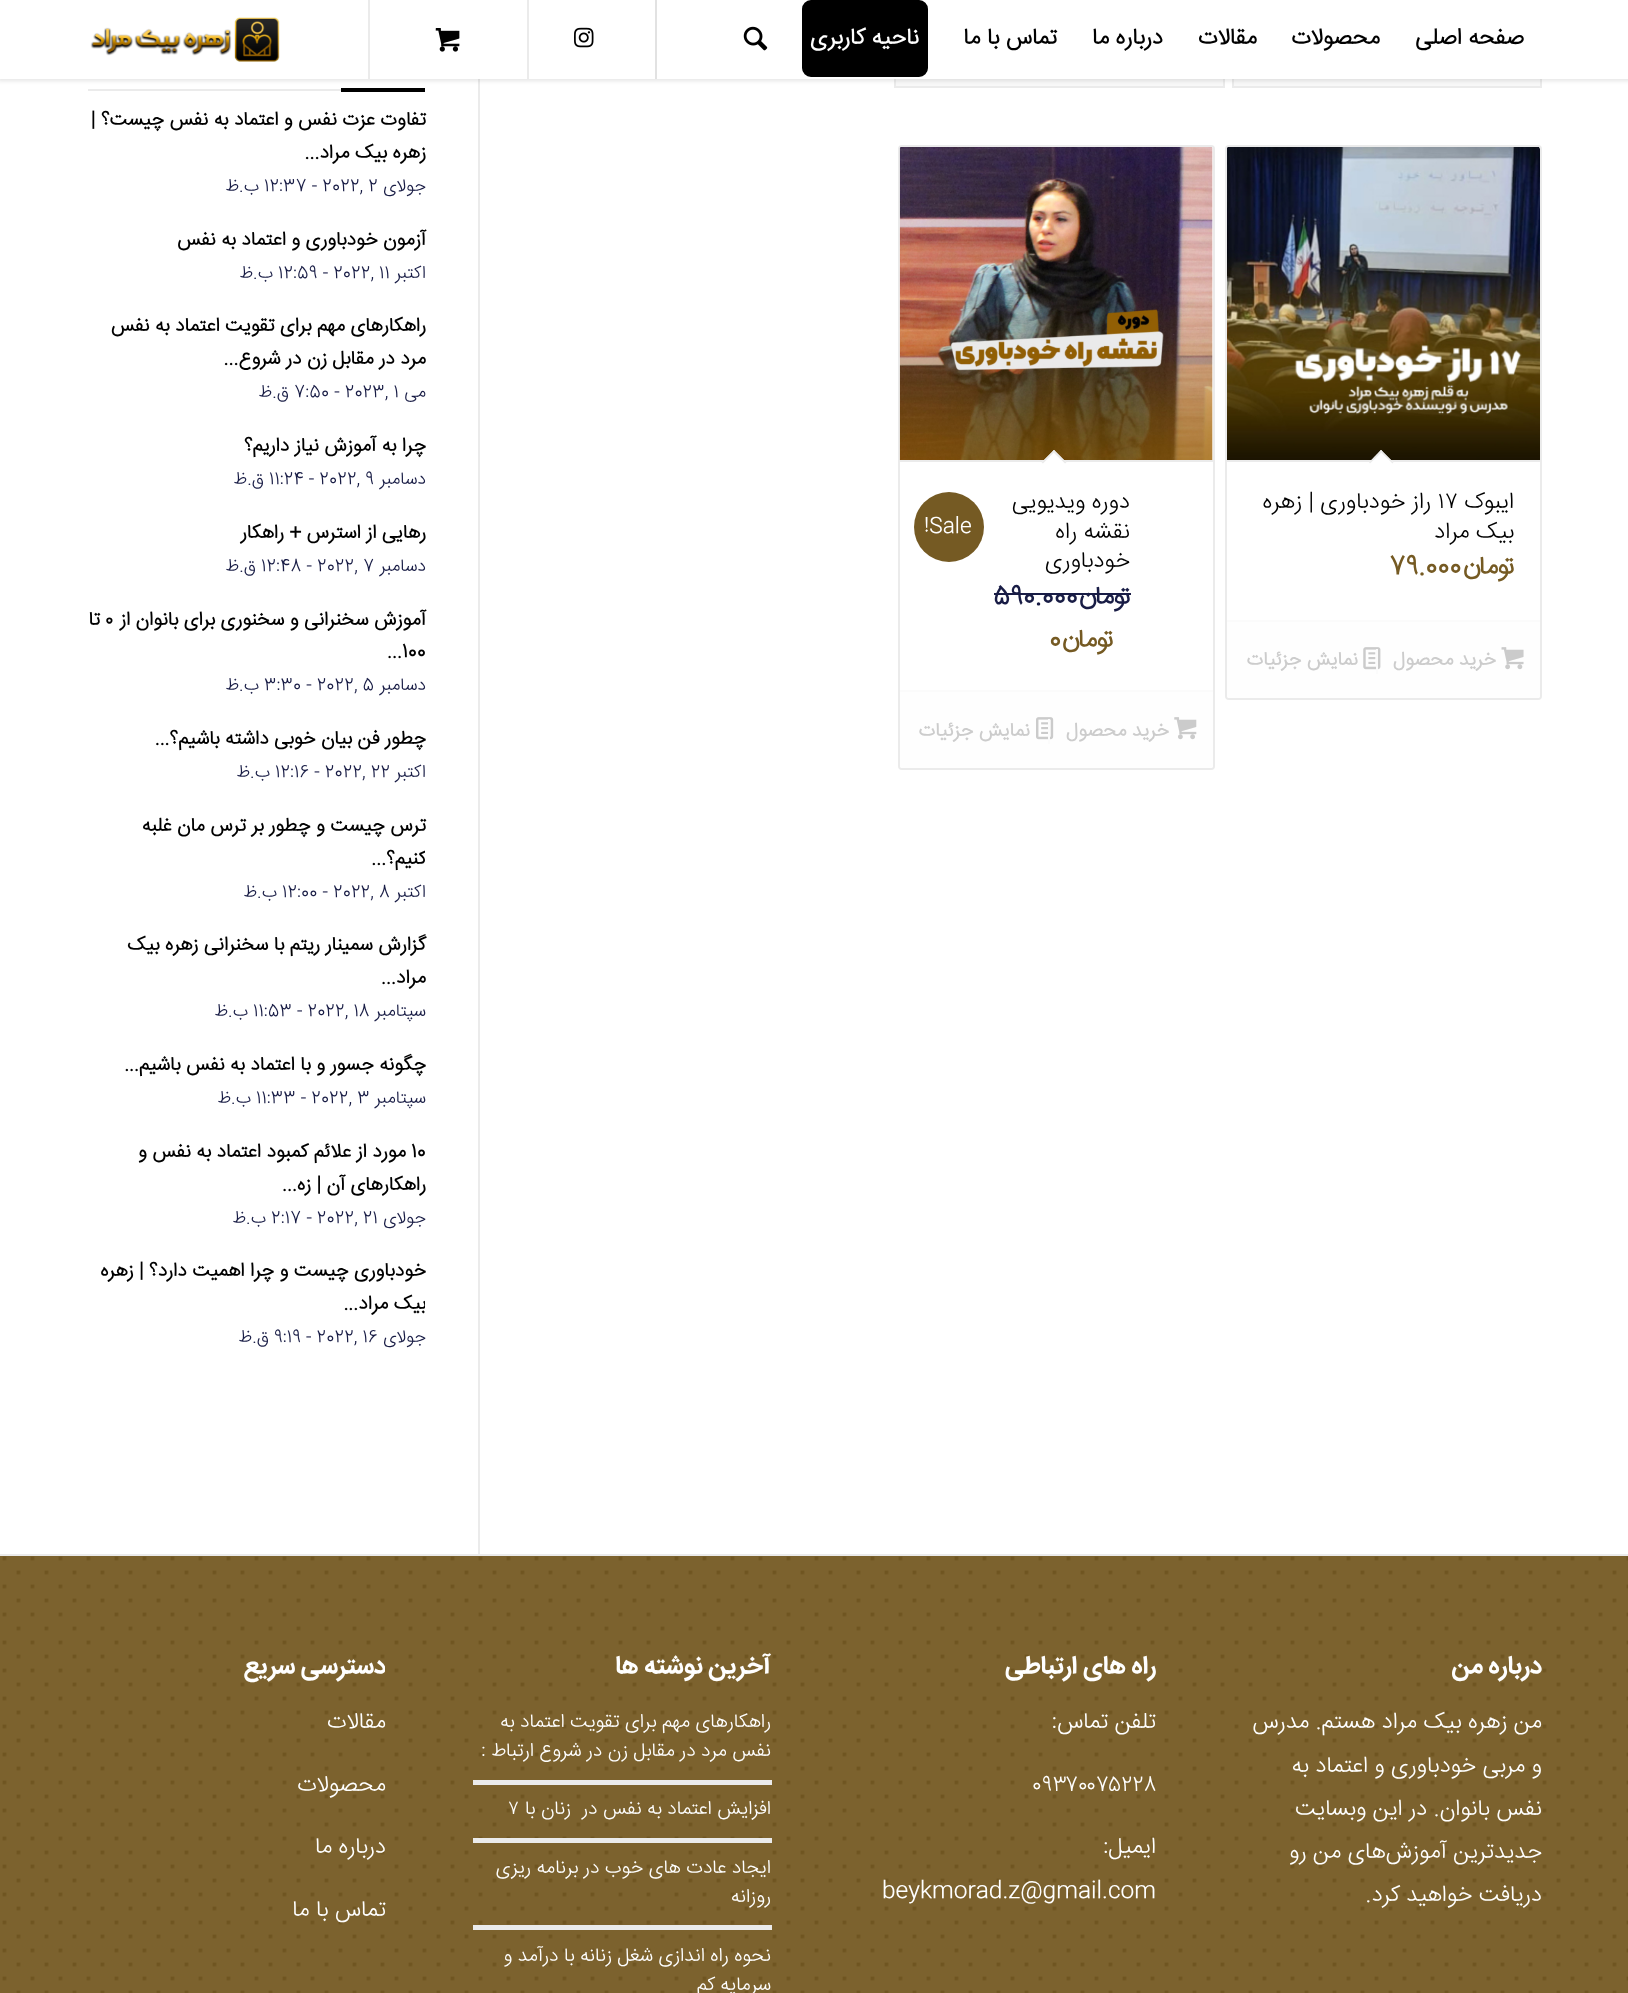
<svg xmlns="http://www.w3.org/2000/svg" width="1628" height="1993" viewBox="0 0 1628 1993">
  <defs>
    <clipPath id="clip1"><rect x="88" y="91" width="337" height="1271" rx="4"/></clipPath>
    <clipPath id="clip2"><rect x="88" y="1635" width="297" height="318"/></clipPath>
  </defs>
  <rect width="100%" height="100%" fill="rgb(255,255,255)"/>
  <rect x="1234" y="79" width="306" height="7" fill="rgb(248,248,248)"/>
  <rect x="1233" y="31" width="308" height="56" fill="none" stroke="rgb(235,235,235)" stroke-width="2"/>
  <rect x="896" y="79" width="327" height="7" fill="rgb(248,248,248)"/>
  <rect x="895" y="31" width="329" height="56" fill="none" stroke="rgb(235,235,235)" stroke-width="2"/>
  <rect x="478" y="79" width="2" height="1475" fill="rgb(235,235,235)"/>
  <rect x="-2" y="-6" width="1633" height="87" fill="rgba(0,0,0,0.1)" filter="blur(2px)"/>
  <rect x="0" y="0" width="1628" height="79" fill="rgb(255,255,255)"/>
  <rect x="655" y="0" width="2" height="79" fill="rgb(226,226,226)"/>
  <g font-family="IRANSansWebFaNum" font-size="22.75" font-weight="bold" direction="rtl" fill="rgb(0,0,0)">
    <text x="1524" y="44">صفحه اصلی</text>
    <text x="1380" y="44">محصولات</text>
    <text x="1257" y="44">مقالات</text>
    <text x="1163" y="44">درباره ما</text>
    <text x="1057" y="44">تماس با ما</text>
  </g>
  <rect x="804" y="2" width="122" height="73" rx="7" fill="rgb(0,0,0)" stroke="rgb(0,0,0)" stroke-width="4"/>
  <text x="919" y="44" font-family="IRANSansWebFaNum" font-size="22.75" font-weight="bold" direction="rtl" fill="rgb(255,255,255)">ناحیه کاربری</text>
  <image x="743" y="26" width="25" height="25" href="pic1.png"/>
  <image x="574" y="27" width="20" height="21" href="pic2.png"/>
  <rect x="527" y="0" width="2" height="79" fill="rgb(235,235,235)"/>
  <rect x="368" y="0" width="2" height="79" fill="rgb(235,235,235)"/>
  <image x="435" y="28" width="25" height="24" href="pic3.png"/>
  <image x="90" y="17" width="190" height="45" href="pic4.png"/>
  <rect x="1226" y="146" width="315" height="553" rx="3" fill="none" stroke="rgb(235,235,235)" stroke-width="2"/>
  <image x="1227" y="147" width="313" height="313" href="pic5.png"/>
  <rect x="1227" y="460" width="313" height="2" fill="rgb(235,235,235)"/>
  <path d="M1381 450L1393.5 462.5L1381 475L1369 462.5Z" fill="rgb(255,255,255)"/>
  <path d="M1381 450L1393.5 462.5L1392.5 463.5L1380 451.5Z" fill="rgb(235,235,235)"/>
  <path d="M1381 450L1382.5 451.5L1370 463.5L1369 462.5Z" fill="rgb(235,235,235)"/>
  <text x="1514" y="508" font-family="IRANSansWebFaNum" font-size="22.75" font-weight="300" direction="rtl" fill="rgb(0,0,0)">ایبوک</text>
  <text x="1438" y="508" font-family="IRANSansWebFaNum" font-size="22.75" font-weight="300" fill="rgb(0,0,0)">۱۷</text>
  <g font-family="IRANSansWebFaNum" font-size="22.75" font-weight="300" direction="rtl" fill="rgb(0,0,0)">
    <text x="1431" y="508">راز خودباوری | زهره</text>
    <text x="1514" y="538">بیک مراد</text>
  </g>
  <text x="1514" y="574" font-family="IRANSansWebFaNum" font-size="26" font-weight="bold" direction="rtl" fill="rgb(117,90,35)">تومان</text>
  <text x="1389" y="574" font-family="IRANSansWebFaNum" font-size="26" font-weight="bold" fill="rgb(117,90,35)">79.000</text>
  <path d="M1227 620H1540V696C1540 697 1539 698 1538 698H1229C1228 698 1227 697 1227 696Z" fill="rgb(254,254,254)"/>
  <rect x="1227" y="620" width="313" height="2" fill="rgb(251,251,251)"/>
  <image x="1501" y="647" width="23" height="23" href="pic6.png"/>
  <text x="1496" y="665" font-family="IRANSansWebFaNum" font-size="19.25" font-weight="bold" direction="rtl" fill="rgb(204,204,204)">خرید محصول</text>
  <image x="1363" y="647" width="18" height="23" href="pic7.png"/>
  <rect x="1376" y="649" width="2" height="25" fill="rgb(251,251,251)"/>
  <text x="1358" y="665" font-family="IRANSansWebFaNum" font-size="19.25" font-weight="bold" direction="rtl" fill="rgb(204,204,204)">نمایش جزئیات</text>
  <rect x="899" y="146" width="315" height="623" rx="3" fill="none" stroke="rgb(235,235,235)" stroke-width="2"/>
  <image x="899" y="147" width="314" height="313" href="pic8.png"/>
  <rect x="900" y="460" width="313" height="2" fill="rgb(235,235,235)"/>
  <path d="M1054 450L1066.5 462.5L1054 475L1041.5 462.5Z" fill="rgb(255,255,255)"/>
  <path d="M1054 450L1066.5 462.5L1065 463.5L1052.5 451.5Z" fill="rgb(235,235,235)"/>
  <path d="M1054 450L1055 451.5L1043 463.5L1041.5 462.5Z" fill="rgb(235,235,235)"/>
  <g font-family="IRANSansWebFaNum" font-size="22.75" font-weight="300" direction="rtl" fill="rgb(0,0,0)">
    <text>
      <tspan x="1130" y="508">دوره ویدیویی</tspan>
      <tspan x="1130" y="538">نقشه راه</tspan>
      <tspan x="1130" y="567">خودباوری</tspan>
    </text>
  </g>
  <circle cx="949" cy="527" r="35" fill="rgb(117,90,35)"/>
  <text x="924" y="532" font-family="IRANSansWebFaNum" font-size="21" font-weight="300" fill="rgb(255,255,255)">!Sale</text>
  <text x="1130" y="604" font-family="IRANSansWebFaNum" font-size="26" font-weight="bold" direction="rtl" fill="rgb(24,28,69)">تومان</text>
  <text x="993" y="604" font-family="IRANSansWebFaNum" font-size="26" font-weight="bold" fill="rgb(24,28,69)">590.000</text>
  <rect x="1080" y="593" width="51" height="2" fill="rgb(24,28,69)"/>
  <rect x="994" y="593" width="86" height="2" fill="rgb(24,28,69)"/>
  <text x="1113" y="647" font-family="IRANSansWebFaNum" font-size="26" font-weight="bold" direction="rtl" fill="rgb(117,90,35)">تومان</text>
  <text x="1049" y="647" font-family="IRANSansWebFaNum" font-size="26" font-weight="bold" fill="rgb(117,90,35)">0</text>
  <path d="M900 690H1213V766C1213 767 1212 768 1211 768H902C901 768 900 767 900 766Z" fill="rgb(254,254,254)"/>
  <rect x="900" y="690" width="313" height="2" fill="rgb(251,251,251)"/>
  <image x="1174" y="717" width="23" height="23" href="pic9.png"/>
  <text x="1169" y="736" font-family="IRANSansWebFaNum" font-size="19.25" font-weight="bold" direction="rtl" fill="rgb(204,204,204)">خرید محصول</text>
  <image x="1036" y="717" width="18" height="23" href="pic10.png"/>
  <rect x="1048" y="719" width="2" height="25" fill="rgb(251,251,251)"/>
  <text x="1030" y="736" font-family="IRANSansWebFaNum" font-size="19.25" font-weight="bold" direction="rtl" fill="rgb(204,204,204)">نمایش جزئیات</text>
  <rect x="88" y="89" width="253" height="2" fill="rgb(235,235,235)"/>
  <rect x="341" y="88" width="84" height="4" fill="rgb(0,0,0)"/>
  <g font-family="IRANSansWebFaNum" font-size="19.3" font-weight="bold" direction="rtl" fill="rgb(0,0,0)">
    <text>
      <tspan x="426" y="125">تفاوت عزت نفس و اعتماد به نفس چیست؟ |</tspan>
      <tspan x="426" y="158">زهره بیک مراد...</tspan>
    </text>
  </g>
  <text x="426" y="191" font-family="IRANSansWebFaNum" font-size="17.75" font-weight="300" direction="rtl" fill="rgb(24,28,69)">جولای</text>
  <text x="264" y="191" font-family="IRANSansWebFaNum" font-size="17.75" font-weight="300" fill="rgb(24,28,69)">12:37 - 2022, 2</text>
  <text x="259" y="191" font-family="IRANSansWebFaNum" font-size="17.75" font-weight="300" direction="rtl" fill="rgb(24,28,69)">ب.ظ</text>
  <text x="426" y="245" font-family="IRANSansWebFaNum" font-size="19.3" font-weight="bold" direction="rtl" fill="rgb(0,0,0)">آزمون خودباوری و اعتماد به نفس</text>
  <text x="426" y="278" font-family="IRANSansWebFaNum" font-size="17.75" font-weight="300" direction="rtl" fill="rgb(24,28,69)">اکتبر</text>
  <text x="278" y="278" font-family="IRANSansWebFaNum" font-size="17.75" font-weight="300" fill="rgb(24,28,69)">12:59 - 2022, 11</text>
  <text x="273" y="278" font-family="IRANSansWebFaNum" font-size="17.75" font-weight="300" direction="rtl" fill="rgb(24,28,69)">ب.ظ</text>
  <g font-family="IRANSansWebFaNum" font-size="19.3" font-weight="bold" direction="rtl" fill="rgb(0,0,0)">
    <text>
      <tspan x="426" y="331">راهکارهای مهم برای تقویت اعتماد به نفس</tspan>
      <tspan x="426" y="364">مرد در مقابل زن در شروع...</tspan>
    </text>
  </g>
  <text x="426" y="397" font-family="IRANSansWebFaNum" font-size="17.75" font-weight="300" direction="rtl" fill="rgb(24,28,69)">می</text>
  <text x="294" y="397" font-family="IRANSansWebFaNum" font-size="17.75" font-weight="300" fill="rgb(24,28,69)">7:50 - 2023, 1</text>
  <text x="289" y="397" font-family="IRANSansWebFaNum" font-size="17.75" font-weight="300" direction="rtl" fill="rgb(24,28,69)">ق.ظ</text>
  <text x="426" y="451" font-family="IRANSansWebFaNum" font-size="19.3" font-weight="bold" direction="rtl" fill="rgb(0,0,0)">چرا به آموزش نیاز داریم؟</text>
  <text x="426" y="484" font-family="IRANSansWebFaNum" font-size="17.75" font-weight="300" direction="rtl" fill="rgb(24,28,69)">دسامبر</text>
  <text x="269" y="484" font-family="IRANSansWebFaNum" font-size="17.75" font-weight="300" fill="rgb(24,28,69)">11:24 - 2022, 9</text>
  <text x="264" y="484" font-family="IRANSansWebFaNum" font-size="17.75" font-weight="300" direction="rtl" fill="rgb(24,28,69)">ق.ظ</text>
  <text x="426" y="538" font-family="IRANSansWebFaNum" font-size="19.3" font-weight="bold" direction="rtl" fill="rgb(0,0,0)">رهایی از استرس + راهکار</text>
  <text x="426" y="571" font-family="IRANSansWebFaNum" font-size="17.75" font-weight="300" direction="rtl" fill="rgb(24,28,69)">دسامبر</text>
  <text x="261" y="571" font-family="IRANSansWebFaNum" font-size="17.75" font-weight="300" fill="rgb(24,28,69)">12:48 - 2022, 7</text>
  <text x="256" y="571" font-family="IRANSansWebFaNum" font-size="17.75" font-weight="300" direction="rtl" fill="rgb(24,28,69)">ق.ظ</text>
  <text x="426" y="625" font-family="IRANSansWebFaNum" font-size="19.3" font-weight="bold" direction="rtl" fill="rgb(0,0,0)">آموزش سخنرانی و سخنوری برای بانوان از</text>
  <text x="105" y="625" font-family="IRANSansWebFaNum" font-size="19.3" font-weight="bold" fill="rgb(0,0,0)">۰</text>
  <text x="100" y="625" font-family="IRANSansWebFaNum" font-size="19.3" font-weight="bold" direction="rtl" fill="rgb(0,0,0)">تا</text>
  <text x="387" y="657" font-family="IRANSansWebFaNum" font-size="19.3" font-weight="bold" fill="rgb(0,0,0)">...100</text>
  <text x="426" y="690" font-family="IRANSansWebFaNum" font-size="17.75" font-weight="300" direction="rtl" fill="rgb(24,28,69)">دسامبر</text>
  <text x="264" y="690" font-family="IRANSansWebFaNum" font-size="17.75" font-weight="300" fill="rgb(24,28,69)">3:30 - 2022, 5</text>
  <text x="259" y="690" font-family="IRANSansWebFaNum" font-size="17.75" font-weight="300" direction="rtl" fill="rgb(24,28,69)">ب.ظ</text>
  <text x="426" y="744" font-family="IRANSansWebFaNum" font-size="19.3" font-weight="bold" direction="rtl" fill="rgb(0,0,0)">چطور فن بیان خوبی داشته باشیم؟...</text>
  <text x="426" y="777" font-family="IRANSansWebFaNum" font-size="17.75" font-weight="300" direction="rtl" fill="rgb(24,28,69)">اکتبر</text>
  <text x="275" y="777" font-family="IRANSansWebFaNum" font-size="17.75" font-weight="300" fill="rgb(24,28,69)">12:16 - 2022, 22</text>
  <text x="270" y="777" font-family="IRANSansWebFaNum" font-size="17.75" font-weight="300" direction="rtl" fill="rgb(24,28,69)">ب.ظ</text>
  <text x="426" y="831" font-family="IRANSansWebFaNum" font-size="19.3" font-weight="bold" direction="rtl" fill="rgb(0,0,0)">ترس چیست و چطور بر ترس مان غلبه</text>
  <g clip-path="url(#clip1)">
    <text x="426" y="864" font-family="IRANSansWebFaNum" font-size="19.3" font-weight="bold" direction="rtl" fill="rgb(0,0,0)">کنیم؟...</text>
  </g>
  <text x="426" y="897" font-family="IRANSansWebFaNum" font-size="17.75" font-weight="300" direction="rtl" fill="rgb(24,28,69)">اکتبر</text>
  <text x="282" y="897" font-family="IRANSansWebFaNum" font-size="17.75" font-weight="300" fill="rgb(24,28,69)">12:00 - 2022, 8</text>
  <text x="277" y="897" font-family="IRANSansWebFaNum" font-size="17.75" font-weight="300" direction="rtl" fill="rgb(24,28,69)">ب.ظ</text>
  <g font-family="IRANSansWebFaNum" font-size="19.3" font-weight="bold" direction="rtl" fill="rgb(0,0,0)">
    <text>
      <tspan x="426" y="950">گزارش سمینار ریتم با سخنرانی زهره بیک</tspan>
      <tspan x="426" y="983">مراد...</tspan>
    </text>
  </g>
  <text x="426" y="1016" font-family="IRANSansWebFaNum" font-size="17.75" font-weight="300" direction="rtl" fill="rgb(24,28,69)">سپتامبر</text>
  <text x="253" y="1016" font-family="IRANSansWebFaNum" font-size="17.75" font-weight="300" fill="rgb(24,28,69)">11:53 - 2022, 18</text>
  <text x="248" y="1016" font-family="IRANSansWebFaNum" font-size="17.75" font-weight="300" direction="rtl" fill="rgb(24,28,69)">ب.ظ</text>
  <text x="426" y="1070" font-family="IRANSansWebFaNum" font-size="19.3" font-weight="bold" direction="rtl" fill="rgb(0,0,0)">چگونه جسور و با اعتماد به نفس باشیم...</text>
  <text x="426" y="1103" font-family="IRANSansWebFaNum" font-size="17.75" font-weight="300" direction="rtl" fill="rgb(24,28,69)">سپتامبر</text>
  <text x="256" y="1103" font-family="IRANSansWebFaNum" font-size="17.75" font-weight="300" fill="rgb(24,28,69)">11:33 - 2022, 3</text>
  <text x="251" y="1103" font-family="IRANSansWebFaNum" font-size="17.75" font-weight="300" direction="rtl" fill="rgb(24,28,69)">ب.ظ</text>
  <text x="411" y="1157" font-family="IRANSansWebFaNum" font-size="19.3" font-weight="bold" fill="rgb(0,0,0)">10</text>
  <g font-family="IRANSansWebFaNum" font-size="19.3" font-weight="bold" direction="rtl" fill="rgb(0,0,0)">
    <text x="406" y="1157">مورد از علائم کمبود اعتماد به نفس و</text>
    <text x="426" y="1190">راهکارهای آن | زه...</text>
  </g>
  <text x="426" y="1223" font-family="IRANSansWebFaNum" font-size="17.75" font-weight="300" direction="rtl" fill="rgb(24,28,69)">جولای</text>
  <text x="271" y="1223" font-family="IRANSansWebFaNum" font-size="17.75" font-weight="300" fill="rgb(24,28,69)">2:17 - 2022, 21</text>
  <text x="266" y="1223" font-family="IRANSansWebFaNum" font-size="17.75" font-weight="300" direction="rtl" fill="rgb(24,28,69)">ب.ظ</text>
  <text x="426" y="1276" font-family="IRANSansWebFaNum" font-size="19.3" font-weight="bold" direction="rtl" fill="rgb(0,0,0)">خودباوری چیست و چرا اهمیت دارد؟ | زهره</text>
  <g clip-path="url(#clip1)">
    <text x="426" y="1309" font-family="IRANSansWebFaNum" font-size="19.3" font-weight="bold" direction="rtl" fill="rgb(0,0,0)">بیک مراد...</text>
  </g>
  <text x="426" y="1342" font-family="IRANSansWebFaNum" font-size="17.75" font-weight="300" direction="rtl" fill="rgb(24,28,69)">جولای</text>
  <text x="274" y="1342" font-family="IRANSansWebFaNum" font-size="17.75" font-weight="300" fill="rgb(24,28,69)">9:19 - 2022, 16</text>
  <text x="269" y="1342" font-family="IRANSansWebFaNum" font-size="17.75" font-weight="300" direction="rtl" fill="rgb(24,28,69)">ق.ظ</text>
  <rect x="0" y="1556" width="1628" height="437" fill="rgb(117,90,35)"/>
  <image x="0" y="1556" width="1628" height="437" href="pic11.png"/>
  <rect x="0" y="1554" width="1628" height="2" fill="rgb(235,235,235)"/>
  <text x="1542" y="1673" font-family="'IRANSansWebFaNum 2'" font-size="25" font-weight="bold" direction="rtl" fill="rgb(255,255,255)">درباره من</text>
  <g font-family="IRANSansWebFaNum" font-size="22.75" font-weight="300" direction="rtl" fill="rgb(255,255,255)">
    <text>
      <tspan x="1542" y="1728">من زهره بیک مراد هستم. مدرس</tspan>
      <tspan x="1542" y="1772">و مربی خودباوری و اعتماد به</tspan>
      <tspan x="1542" y="1815">نفس بانوان. در این وبسایت</tspan>
      <tspan x="1542" y="1858">جدیدترین آموزش‌های من رو</tspan>
      <tspan x="1542" y="1901">دریافت خواهید کرد.</tspan>
    </text>
  </g>
  <text x="1156" y="1673" font-family="'IRANSansWebFaNum 2'" font-size="25" font-weight="bold" direction="rtl" fill="rgb(255,255,255)">راه های ارتباطی</text>
  <text x="1156" y="1728" font-family="IRANSansWebFaNum" font-size="22.75" font-weight="300" direction="rtl" fill="rgb(255,255,255)">تلفن تماس:</text>
  <text x="1032" y="1791" font-family="IRANSansWebFaNum" font-size="22.75" font-weight="300" fill="rgb(255,255,255)">۰۹۳۷۰۰۷۵۲۲۸</text>
  <text x="1156" y="1853" font-family="IRANSansWebFaNum" font-size="22.75" font-weight="300" direction="rtl" fill="rgb(255,255,255)">ایمیل:</text>
  <text x="882" y="1897" font-family="IRANSansWebFaNum" font-size="22.75" font-weight="300" fill="rgb(255,255,255)">beykmorad.z@gmail.com</text>
  <text x="771" y="1673" font-family="'IRANSansWebFaNum 2'" font-size="25" font-weight="bold" direction="rtl" fill="rgb(255,255,255)">آخرین نوشته ها</text>
  <g font-family="IRANSansWebFaNum" font-size="19.3" font-weight="300" direction="rtl" fill="rgb(255,255,255)">
    <text>
      <tspan x="771" y="1727">راهکارهای مهم برای تقویت اعتماد به</tspan>
      <tspan x="771" y="1756">نفس مرد در مقابل زن در شروع ارتباط :</tspan>
    </text>
  </g>
  <rect x="473" y="1780" width="299" height="5" fill="rgb(235,235,235)"/>
  <text x="771" y="1814" font-family="IRANSansWebFaNum" font-size="19.3" font-weight="300" direction="rtl" fill="rgb(255,255,255)" xml:space="preserve">افزایش اعتما‌د به نفس در  زنان با</text>
  <text x="508" y="1814" font-family="IRANSansWebFaNum" font-size="19.3" font-weight="300" fill="rgb(255,255,255)">۷</text>
  <rect x="473" y="1838" width="299" height="5" fill="rgb(235,235,235)"/>
  <g font-family="IRANSansWebFaNum" font-size="19.3" font-weight="300" direction="rtl" fill="rgb(255,255,255)">
    <text>
      <tspan x="771" y="1873">ایجاد عادت های خوب در برنامه ریزی</tspan>
      <tspan x="771" y="1902">روزانه</tspan>
    </text>
  </g>
  <rect x="473" y="1925" width="299" height="5" fill="rgb(235,235,235)"/>
  <g font-family="IRANSansWebFaNum" font-size="19.3" font-weight="300" direction="rtl" fill="rgb(255,255,255)">
    <text>
      <tspan x="771" y="1961">نحوه راه اندازی شغل زنانه با درآمد و</tspan>
      <tspan x="771" y="1990">سرمایه کم</tspan>
    </text>
  </g>
  <g clip-path="url(#clip2)">
    <text x="386" y="1673" font-family="'IRANSansWebFaNum 2'" font-size="25" font-weight="bold" direction="rtl" fill="rgb(255,255,255)">دسترسی سریع</text>
  </g>
  <g font-family="IRANSansWebFaNum" font-size="22.75" font-weight="300" direction="rtl" fill="rgb(255,255,255)">
    <text x="386" y="1728">مقالات</text>
    <text x="386" y="1791">محصولات</text>
    <text x="386" y="1853">درباره ما</text>
    <text x="386" y="1916">تماس با ما</text>
  </g>
</svg>
